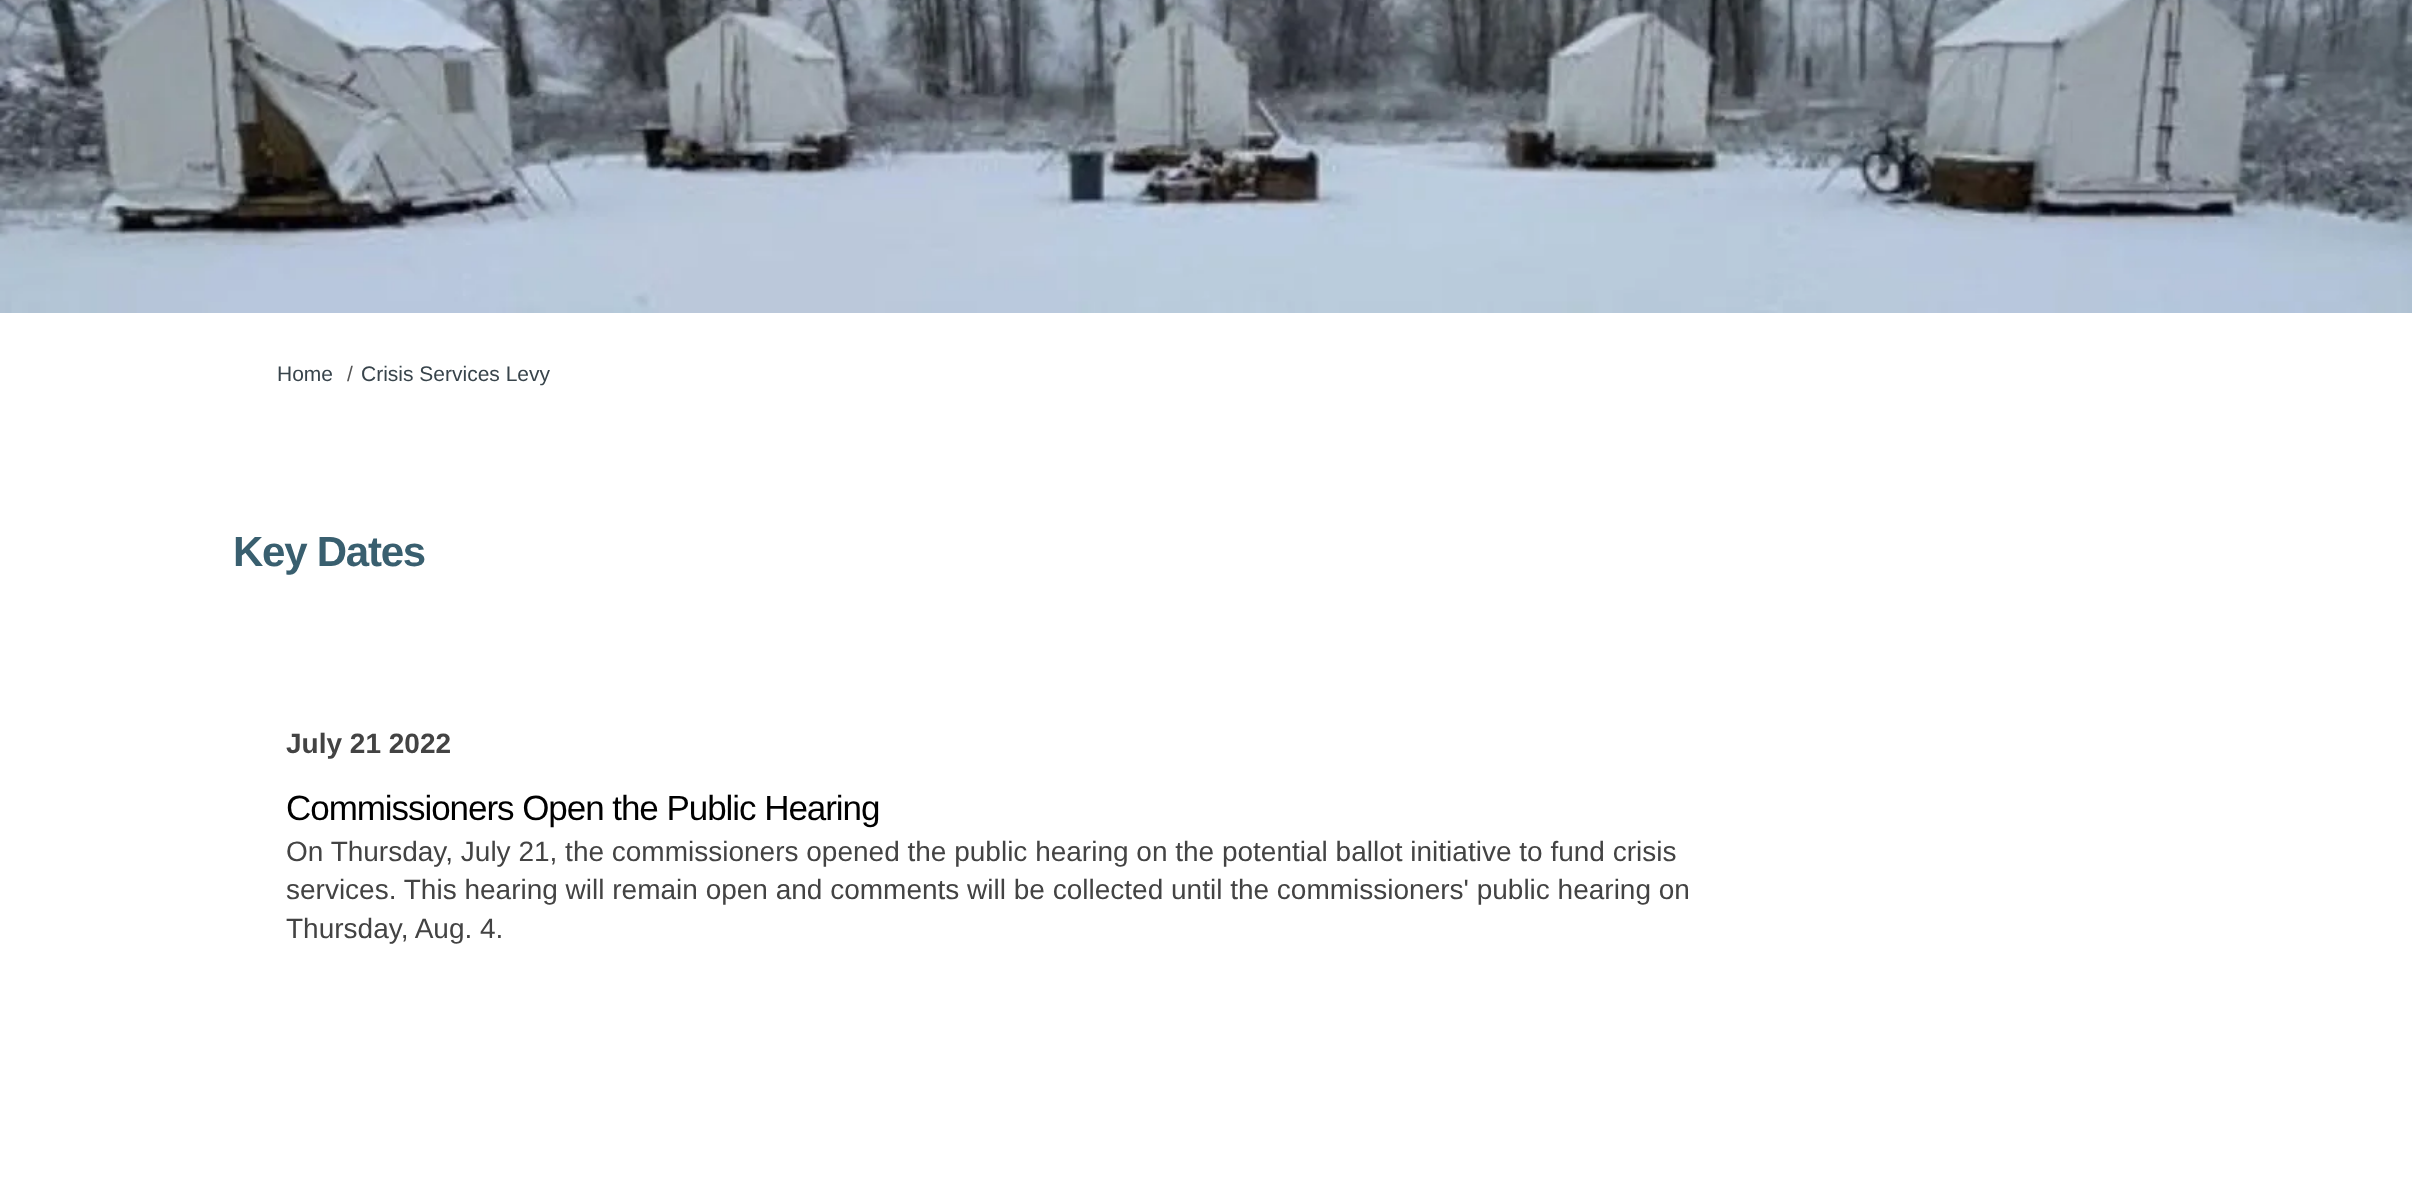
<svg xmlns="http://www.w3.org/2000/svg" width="2412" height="1181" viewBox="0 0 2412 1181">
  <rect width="100%" height="100%" fill="rgb(255,255,255)"/>
  <image x="0" y="0" width="2412" height="313" href="pic1.png"/>
  <text x="277" y="381" font-family="Liberation Sans" font-size="21" fill="rgb(56,68,75)">Home</text>
  <text x="347" y="381" font-family="Liberation Sans" font-size="21" fill="rgb(85,85,85)">/</text>
  <text x="361" y="381" font-family="Liberation Sans" font-size="21" fill="rgb(56,68,75)">Crisis Services Levy</text>
  <text x="233" y="566" font-family="Liberation Sans" font-size="42" font-weight="bold" letter-spacing="-1.25" fill="rgb(57,95,111)">Key Dates</text>
  <text x="286" y="753" font-family="Liberation Sans" font-size="28" font-weight="bold" fill="rgb(67,67,67)">July 21 2022</text>
  <text x="286" y="820" font-family="Liberation Sans" font-size="35" letter-spacing="-1.05" fill="rgb(0,0,0)">Commissioners Open the Public Hearing</text>
  <g font-family="Liberation Sans" font-size="28" fill="rgb(67,67,67)">
    <text>
      <tspan x="286" y="861">On Thursday, July 21, the commissioners opened the public hearing on the potential ballot initiative to fund crisis</tspan>
      <tspan x="286" y="899">services. This hearing will remain open and comments will be collected until the commissioners' public hearing on</tspan>
      <tspan x="286" y="938">Thursday, Aug. 4.</tspan>
    </text>
  </g>
</svg>
